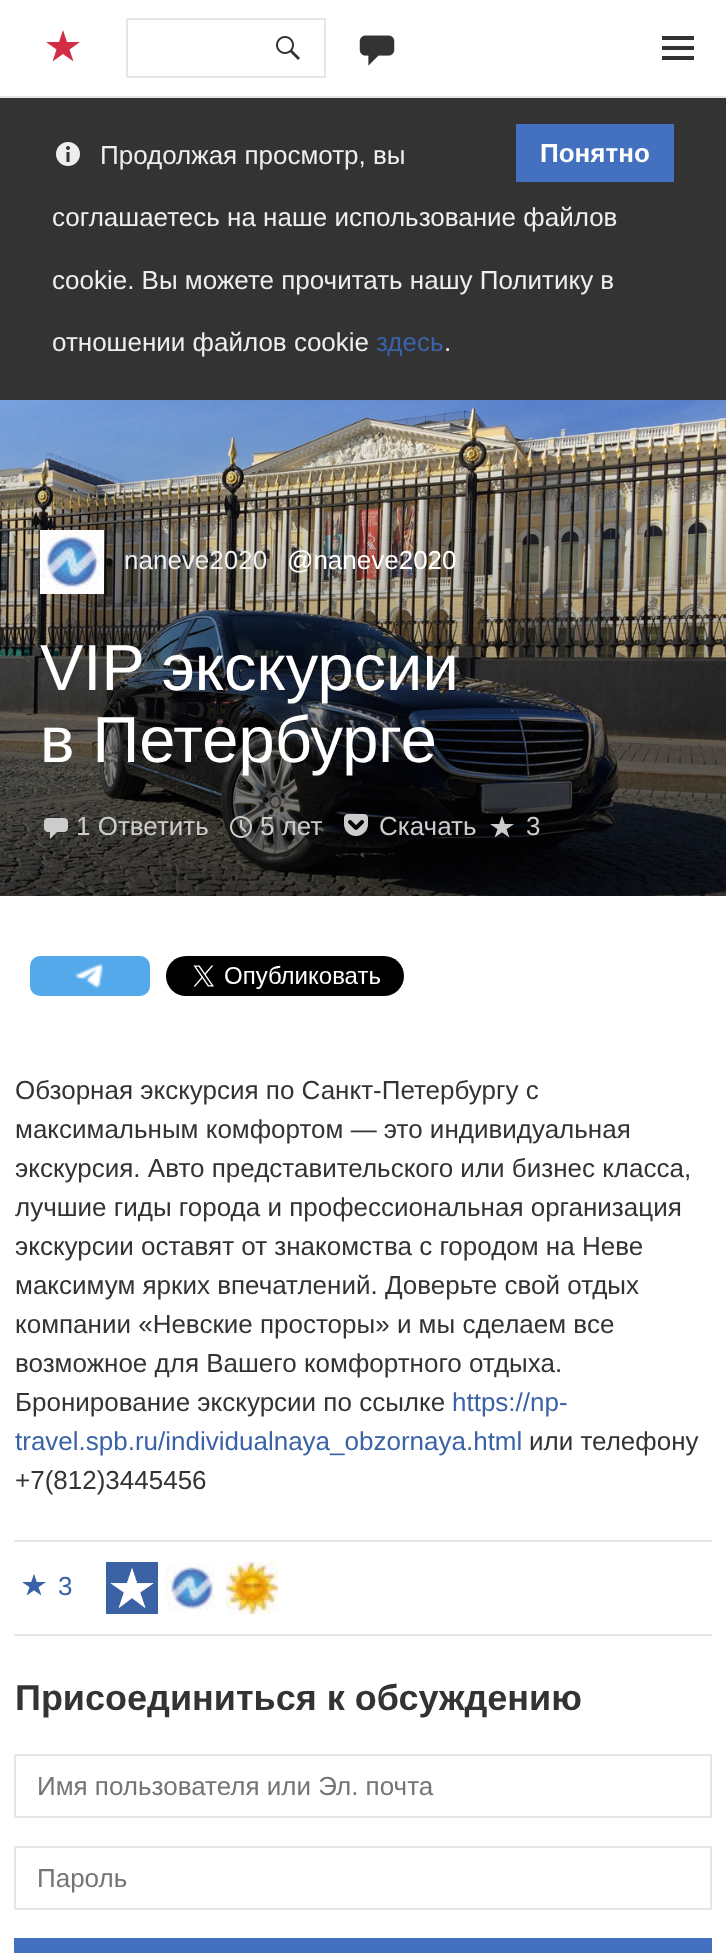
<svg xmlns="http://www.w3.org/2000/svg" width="726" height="1953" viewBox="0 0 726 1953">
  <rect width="100%" height="100%" fill="rgb(255,255,255)"/>
  <rect x="0" y="96" width="726" height="2" fill="rgb(230,230,230)"/>
  <path d="M46 42L56.5 49.5L52.5 61.5L63 54L73.5 61.5L69.5 49.5L80 42H67L63 30L59 42Z" fill="rgb(211,44,69)"/>
  <rect x="127" y="19" width="198" height="58" fill="none" stroke="rgb(230,230,230)" stroke-width="2"/>
  <image x="276" y="36" width="24" height="24" href="pic1.png"/>
  <image x="359" y="35" width="36" height="31" href="pic2.png"/>
  <image x="662" y="36" width="32" height="24" href="pic3.png"/>
  <rect x="0" y="98" width="726" height="302" fill="rgb(51,51,51)"/>
  <image x="56" y="142" width="24" height="24" href="pic4.png"/>
  <text x="100" y="164" font-family="Liberation Sans" font-size="26" fill="rgb(238,238,238)">Продолжая просмотр, вы</text>
  <rect x="516" y="124" width="158" height="58" fill="rgb(67,113,191)"/>
  <text x="540" y="162" font-family="Liberation Sans" font-size="26" font-weight="bold" fill="rgb(255,255,255)">Понятно</text>
  <g font-family="Liberation Sans" font-size="26" fill="rgb(238,238,238)">
    <text x="52" y="226">соглашаетесь на наше использование файлов</text>
    <text x="52" y="289">cookie. Вы можете прочитать нашу Политику в</text>
    <text x="52" y="351">отношении файлов cookie</text>
  </g>
  <text x="376" y="351" font-family="Liberation Sans" font-size="26" fill="rgb(58,98,166)">здесь</text>
  <text x="444" y="351" font-family="Liberation Sans" font-size="26" fill="rgb(238,238,238)">.</text>
  <image x="0" y="400" width="726" height="496" href="pic5.png"/>
  <image x="40" y="530" width="64" height="64" href="pic6.png"/>
  <text x="124" y="569" font-family="Liberation Sans" font-size="26" fill="rgb(238,238,238)">naneve2020</text>
  <text x="287" y="569" font-family="Liberation Sans" font-size="26" fill="rgb(255,255,255)">@naneve2020</text>
  <g font-family="Liberation Sans" font-size="65" fill="rgb(255,255,255)">
    <text>
      <tspan x="40" y="690">VIP экскурсии</tspan>
      <tspan x="40" y="762">в Петербурге</tspan>
    </text>
  </g>
  <image x="44" y="818" width="24" height="21" href="pic7.png"/>
  <text x="76" y="835" font-family="Liberation Sans" font-size="26" fill="rgb(204,204,204)">1 Ответить</text>
  <image x="230" y="816" width="22" height="22" href="pic8.png"/>
  <text x="260" y="835" font-family="Liberation Sans" font-size="26" fill="rgb(204,204,204)">5 лет</text>
  <image x="344" y="814" width="24" height="22" href="pic9.png"/>
  <text x="379" y="835" font-family="Liberation Sans" font-size="26" fill="rgb(204,204,204)">Скачать</text>
  <image x="490" y="816" width="24" height="22" href="pic10.png"/>
  <text x="526" y="835" font-family="Liberation Sans" font-size="26" fill="rgb(204,204,204)">3</text>
  <image x="30" y="956" width="120" height="40" href="pic11.png"/>
  <image x="166" y="956" width="238" height="40" href="pic12.png"/>
  <g font-family="Liberation Sans" font-size="26" fill="rgb(51,51,51)">
    <text>
      <tspan x="15" y="1099">Обзорная экскурсия по Санкт-Петербургу с</tspan>
      <tspan x="15" y="1138">максимальным комфортом — это индивидуальная</tspan>
      <tspan x="15" y="1177">экскурсия. Авто представительского или бизнес класса,</tspan>
      <tspan x="15" y="1216">лучшие гиды города и профессиональная организация</tspan>
      <tspan x="15" y="1255">экскурсии оставят от знакомства с городом на Неве</tspan>
      <tspan x="15" y="1294">максимум ярких впечатлений. Доверьте свой отдых</tspan>
      <tspan x="15" y="1333">компании «Невские просторы» и мы сделаем все</tspan>
      <tspan x="15" y="1372">возможное для Вашего комфортного отдыха.</tspan>
      <tspan x="15" y="1411">Бронирование экскурсии по ссылке</tspan>
    </text>
  </g>
  <g font-family="Liberation Sans" font-size="26" fill="rgb(58,98,166)">
    <text x="452" y="1411">https://np-</text>
    <text x="15" y="1450">travel.spb.ru/individualnaya_obzornaya.html</text>
  </g>
  <g font-family="Liberation Sans" font-size="26" fill="rgb(51,51,51)">
    <text x="529" y="1450">или телефону</text>
    <text x="15" y="1489">+7(812)3445456</text>
  </g>
  <rect x="14" y="1540" width="698" height="2" fill="rgb(230,230,230)"/>
  <rect x="14" y="1634" width="698" height="2" fill="rgb(230,230,230)"/>
  <image x="22" y="1574" width="24" height="22" href="pic13.png"/>
  <text x="58" y="1595" font-family="Liberation Sans" font-size="26" fill="rgb(58,98,166)">3</text>
  <image x="106" y="1562" width="52" height="52" href="pic14.png"/>
  <image x="166" y="1562" width="49" height="49" href="pic15.png"/>
  <image x="226" y="1562" width="52" height="52" href="pic16.png"/>
  <text x="15" y="1710" font-family="Liberation Sans" font-size="36" font-weight="bold" fill="rgb(51,51,51)">Присоединиться к обсуждению</text>
  <rect x="15" y="1755" width="696" height="62" fill="none" stroke="rgb(230,230,230)" stroke-width="2"/>
  <text x="37" y="1795" font-family="Liberation Sans" font-size="26" fill="rgb(117,117,117)">Имя пользователя или Эл. почта</text>
  <rect x="15" y="1847" width="696" height="62" fill="none" stroke="rgb(230,230,230)" stroke-width="2"/>
  <text x="37" y="1887" font-family="Liberation Sans" font-size="26" fill="rgb(117,117,117)">Пароль</text>
  <rect x="14" y="1938" width="698" height="15" fill="rgb(67,113,191)"/>
</svg>
